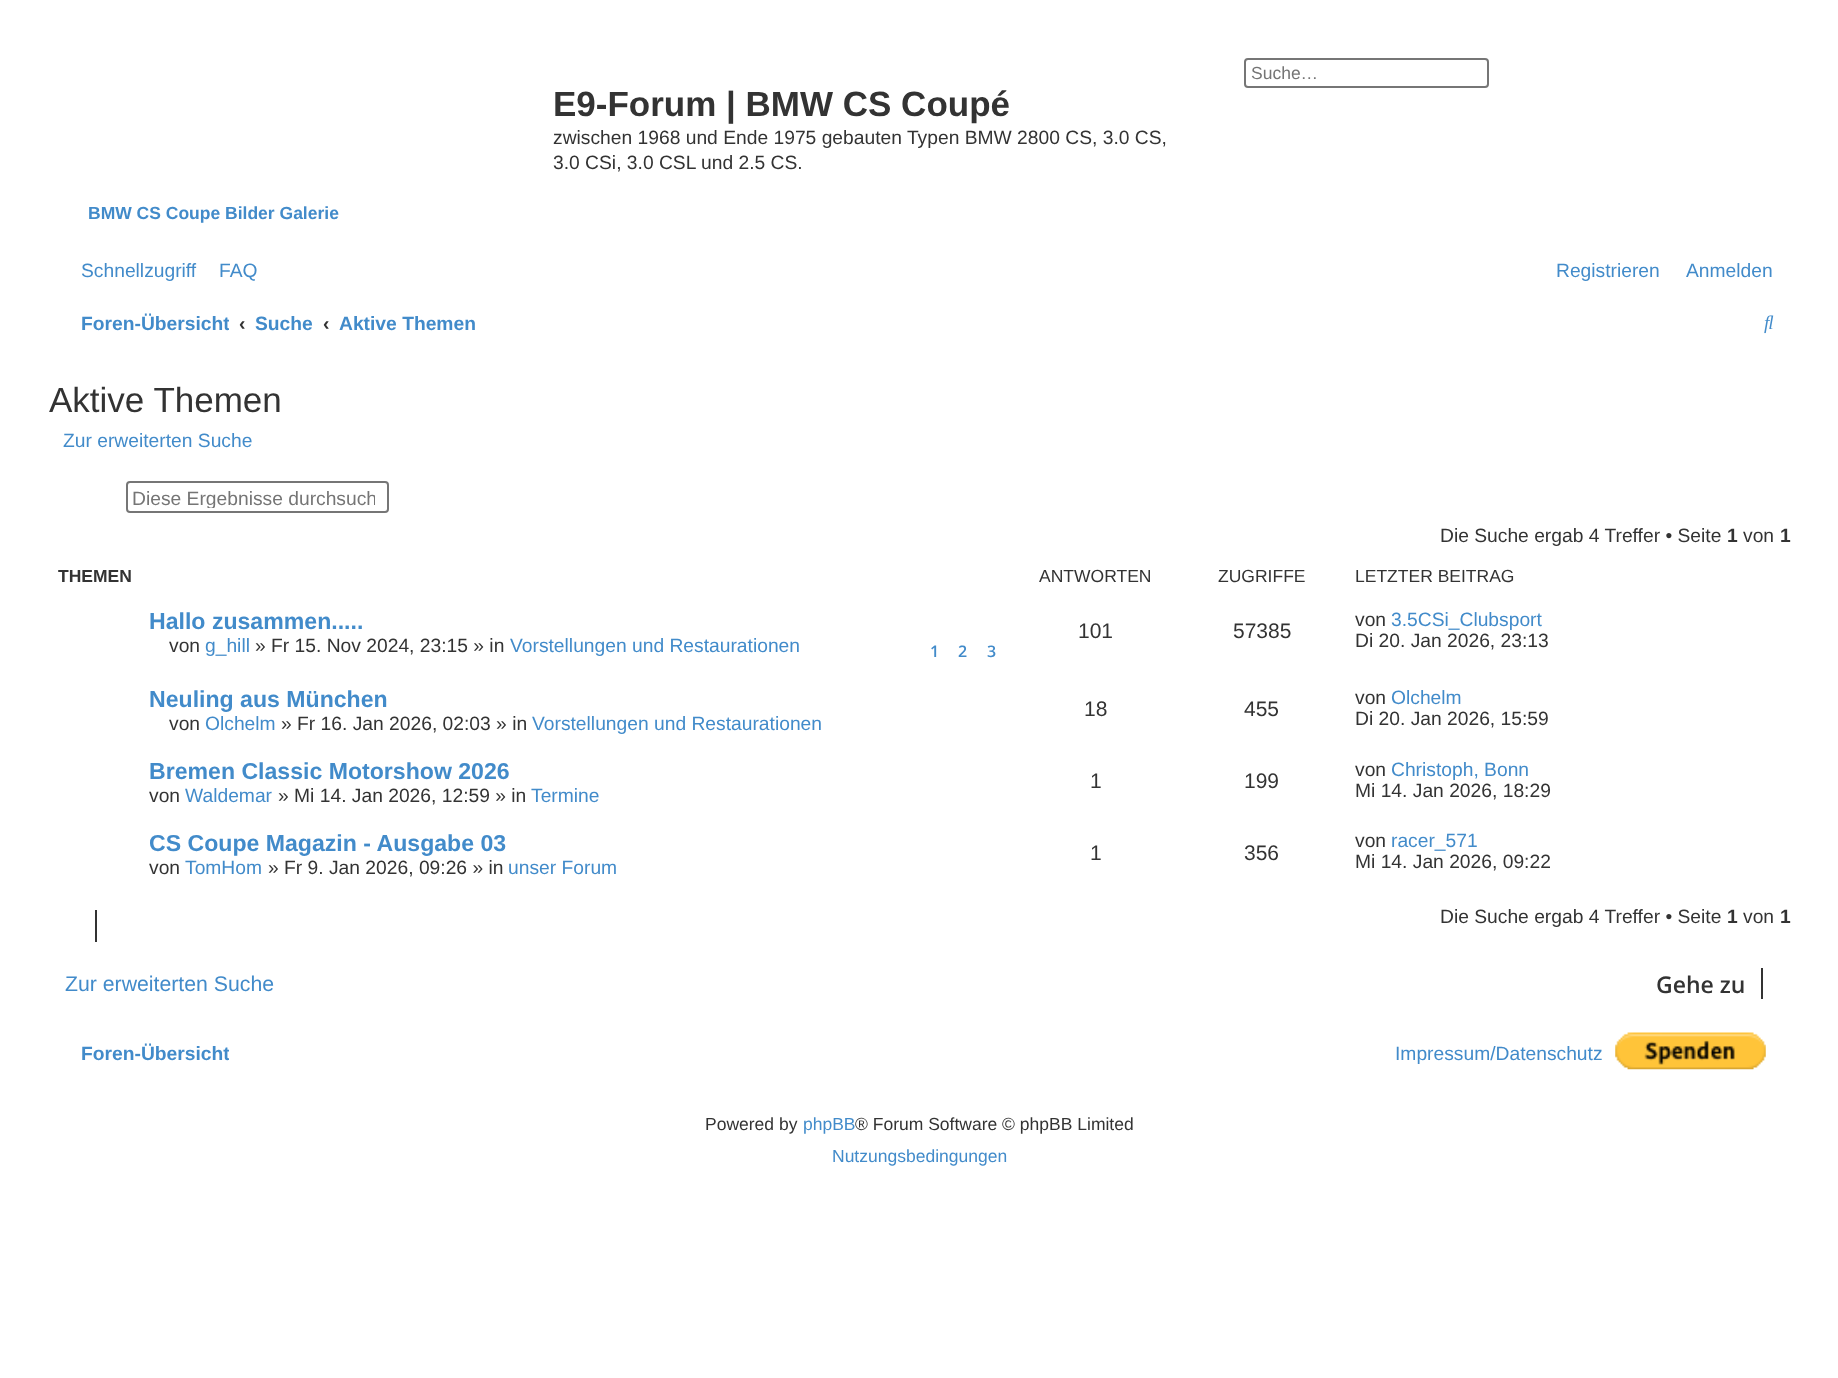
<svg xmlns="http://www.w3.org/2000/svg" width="1838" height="1378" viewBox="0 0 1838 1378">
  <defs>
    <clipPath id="clip1"><rect x="67" y="301" width="162" height="44"/></clipPath>
    <clipPath id="clip2"><rect x="133" y="487" width="242" height="21"/></clipPath>
    <clipPath id="clip3"><rect x="67" y="1033" width="162" height="42"/></clipPath>
  </defs>
  <rect width="100%" height="100%" fill="rgb(255,255,255)"/>
  <rect x="1245" y="59" width="243" height="28" rx="3" fill="none" stroke="rgb(118,118,118)" stroke-width="2"/>
  <text x="1251" y="79" font-family="Liberation Sans" font-size="17.5" fill="rgb(117,117,117)">Suche…</text>
  <text x="553" y="116" font-family="Liberation Sans" font-size="35" font-weight="bold" fill="rgb(51,51,51)">E9-Forum | BMW CS Coupé</text>
  <g font-family="Liberation Sans" font-size="19.25" fill="rgb(51,51,51)">
    <text>
      <tspan x="553" y="144">zwischen 1968 und Ende 1975 gebauten Typen BMW 2800 CS, 3.0 CS,</tspan>
      <tspan x="553" y="169">3.0 CSi, 3.0 CSL und 2.5 CS.</tspan>
    </text>
  </g>
  <text x="88" y="219" font-family="Liberation Sans" font-size="17.5" font-weight="bold" fill="rgb(66,139,202)">BMW CS Coupe Bilder Galerie</text>
  <g font-family="Liberation Sans" font-size="19.25" fill="rgb(66,139,202)">
    <text x="81" y="277">Schnellzugriff</text>
    <text x="219" y="277">FAQ</text>
    <text x="1556" y="277">Registrieren</text>
    <text x="1686" y="277">Anmelden</text>
  </g>
  <g clip-path="url(#clip1)">
    <text x="81" y="330" font-family="Liberation Sans" font-size="19.25" font-weight="bold" fill="rgb(66,139,202)">Foren-Übersicht</text>
  </g>
  <text x="239" y="330" font-family="Liberation Sans" font-size="19.25" font-weight="bold" fill="rgb(51,51,51)">‹</text>
  <text x="255" y="330" font-family="Liberation Sans" font-size="19.25" font-weight="bold" fill="rgb(66,139,202)">Suche</text>
  <text x="323" y="330" font-family="Liberation Sans" font-size="19.25" font-weight="bold" fill="rgb(51,51,51)">‹</text>
  <text x="339" y="330" font-family="Liberation Sans" font-size="19.25" font-weight="bold" fill="rgb(66,139,202)">Aktive Themen</text>
  <image x="1764" y="315" width="10" height="19" href="pic1.png"/>
  <text x="49" y="412" font-family="Liberation Sans" font-size="35" fill="rgb(51,51,51)">Aktive Themen</text>
  <text x="63" y="447" font-family="Liberation Sans" font-size="19.25" fill="rgb(66,139,202)">Zur erweiterten Suche</text>
  <rect x="127" y="482" width="261" height="30" rx="3" fill="none" stroke="rgb(118,118,118)" stroke-width="2"/>
  <g clip-path="url(#clip2)">
    <text x="132" y="505" font-family="Liberation Sans" font-size="19.25" fill="rgb(117,117,117)">Diese Ergebnisse durchsuch</text>
  </g>
  <text x="1440" y="542" font-family="Liberation Sans" font-size="19.25" fill="rgb(51,51,51)">Die Suche ergab 4 Treffer • Seite</text>
  <text x="1727" y="542" font-family="Liberation Sans" font-size="19.25" font-weight="bold" fill="rgb(51,51,51)">1</text>
  <text x="1743" y="542" font-family="Liberation Sans" font-size="19.25" fill="rgb(51,51,51)">von</text>
  <text x="1780" y="542" font-family="Liberation Sans" font-size="19.25" font-weight="bold" fill="rgb(51,51,51)">1</text>
  <text x="58" y="582" font-family="Liberation Sans" font-size="17.5" font-weight="bold" fill="rgb(51,51,51)">THEMEN</text>
  <g font-family="Liberation Sans" font-size="17.5" fill="rgb(51,51,51)">
    <text x="1039" y="582">ANTWORTEN</text>
    <text x="1218" y="582">ZUGRIFFE</text>
    <text x="1355" y="582">LETZTER BEITRAG</text>
  </g>
  <text x="149" y="629" font-family="Liberation Sans" font-size="23.1" font-weight="bold" fill="rgb(66,139,202)">Hallo zusammen.....</text>
  <text x="169" y="652" font-family="Liberation Sans" font-size="19.25" fill="rgb(51,51,51)">von</text>
  <text x="205" y="652" font-family="Liberation Sans" font-size="19.25" fill="rgb(66,139,202)">g_hill</text>
  <text x="255" y="652" font-family="Liberation Sans" font-size="19.25" fill="rgb(51,51,51)">» Fr 15. Nov 2024, 23:15 » in</text>
  <text x="510" y="652" font-family="Liberation Sans" font-size="19.25" fill="rgb(66,139,202)">Vorstellungen und Restaurationen</text>
  <g font-family="Open Sans" font-size="16" font-weight="600" fill="rgb(66,139,202)">
    <text x="930" y="657">1</text>
    <text x="958" y="657">2</text>
    <text x="987" y="657">3</text>
  </g>
  <g font-family="Liberation Sans" font-size="21" fill="rgb(51,51,51)">
    <text x="1078" y="638">101</text>
    <text x="1233" y="638">57385</text>
  </g>
  <text x="1355" y="626" font-family="Liberation Sans" font-size="19.25" fill="rgb(51,51,51)">von</text>
  <text x="1391" y="626" font-family="Liberation Sans" font-size="19.25" fill="rgb(66,139,202)">3.5CSi_Clubsport</text>
  <text x="1355" y="647" font-family="Liberation Sans" font-size="19.25" fill="rgb(51,51,51)">Di 20. Jan 2026, 23:13</text>
  <text x="149" y="707" font-family="Liberation Sans" font-size="23.1" font-weight="bold" fill="rgb(66,139,202)">Neuling aus München</text>
  <text x="169" y="730" font-family="Liberation Sans" font-size="19.25" fill="rgb(51,51,51)">von</text>
  <text x="205" y="730" font-family="Liberation Sans" font-size="19.25" fill="rgb(66,139,202)">Olchelm</text>
  <text x="281" y="730" font-family="Liberation Sans" font-size="19.25" fill="rgb(51,51,51)">» Fr 16. Jan 2026, 02:03 » in</text>
  <text x="532" y="730" font-family="Liberation Sans" font-size="19.25" fill="rgb(66,139,202)">Vorstellungen und Restaurationen</text>
  <g font-family="Liberation Sans" font-size="21" fill="rgb(51,51,51)">
    <text x="1084" y="716">18</text>
    <text x="1244" y="716">455</text>
  </g>
  <text x="1355" y="704" font-family="Liberation Sans" font-size="19.25" fill="rgb(51,51,51)">von</text>
  <text x="1391" y="704" font-family="Liberation Sans" font-size="19.25" fill="rgb(66,139,202)">Olchelm</text>
  <text x="1355" y="725" font-family="Liberation Sans" font-size="19.25" fill="rgb(51,51,51)">Di 20. Jan 2026, 15:59</text>
  <text x="149" y="779" font-family="Liberation Sans" font-size="23.1" font-weight="bold" fill="rgb(66,139,202)">Bremen Classic Motorshow 2026</text>
  <text x="149" y="802" font-family="Liberation Sans" font-size="19.25" fill="rgb(51,51,51)">von</text>
  <text x="185" y="802" font-family="Liberation Sans" font-size="19.25" fill="rgb(66,139,202)">Waldemar</text>
  <text x="278" y="802" font-family="Liberation Sans" font-size="19.25" fill="rgb(51,51,51)">» Mi 14. Jan 2026, 12:59 » in</text>
  <text x="531" y="802" font-family="Liberation Sans" font-size="19.25" fill="rgb(66,139,202)">Termine</text>
  <g font-family="Liberation Sans" font-size="21" fill="rgb(51,51,51)">
    <text x="1090" y="788">1</text>
    <text x="1244" y="788">199</text>
  </g>
  <text x="1355" y="776" font-family="Liberation Sans" font-size="19.25" fill="rgb(51,51,51)">von</text>
  <text x="1391" y="776" font-family="Liberation Sans" font-size="19.25" fill="rgb(66,139,202)">Christoph, Bonn</text>
  <text x="1355" y="797" font-family="Liberation Sans" font-size="19.25" fill="rgb(51,51,51)">Mi 14. Jan 2026, 18:29</text>
  <text x="149" y="851" font-family="Liberation Sans" font-size="23.1" font-weight="bold" fill="rgb(66,139,202)">CS Coupe Magazin - Ausgabe 03</text>
  <text x="149" y="874" font-family="Liberation Sans" font-size="19.25" fill="rgb(51,51,51)">von</text>
  <text x="185" y="874" font-family="Liberation Sans" font-size="19.25" fill="rgb(66,139,202)">TomHom</text>
  <text x="268" y="874" font-family="Liberation Sans" font-size="19.25" fill="rgb(51,51,51)">» Fr 9. Jan 2026, 09:26 » in</text>
  <text x="508" y="874" font-family="Liberation Sans" font-size="19.25" fill="rgb(66,139,202)">unser Forum</text>
  <g font-family="Liberation Sans" font-size="21" fill="rgb(51,51,51)">
    <text x="1090" y="860">1</text>
    <text x="1244" y="860">356</text>
  </g>
  <text x="1355" y="847" font-family="Liberation Sans" font-size="19.25" fill="rgb(51,51,51)">von</text>
  <text x="1391" y="847" font-family="Liberation Sans" font-size="19.25" fill="rgb(66,139,202)">racer_571</text>
  <text x="1355" y="868" font-family="Liberation Sans" font-size="19.25" fill="rgb(51,51,51)">Mi 14. Jan 2026, 09:22</text>
  <rect x="95" y="910" width="2" height="32" fill="rgb(51,51,51)"/>
  <text x="1440" y="923" font-family="Liberation Sans" font-size="19.25" fill="rgb(51,51,51)">Die Suche ergab 4 Treffer • Seite</text>
  <text x="1727" y="923" font-family="Liberation Sans" font-size="19.25" font-weight="bold" fill="rgb(51,51,51)">1</text>
  <text x="1743" y="923" font-family="Liberation Sans" font-size="19.25" fill="rgb(51,51,51)">von</text>
  <text x="1780" y="923" font-family="Liberation Sans" font-size="19.25" font-weight="bold" fill="rgb(51,51,51)">1</text>
  <text x="65" y="991" font-family="Liberation Sans" font-size="21.25" fill="rgb(66,139,202)">Zur erweiterten Suche</text>
  <text x="1656" y="993" font-family="Open Sans" font-size="23" font-weight="600" fill="rgb(51,51,51)">Gehe zu</text>
  <rect x="1761" y="968" width="2" height="31" fill="rgb(51,51,51)"/>
  <g clip-path="url(#clip3)">
    <text x="81" y="1060" font-family="Liberation Sans" font-size="19.25" font-weight="bold" fill="rgb(66,139,202)">Foren-Übersicht</text>
  </g>
  <text x="1395" y="1060" font-family="Liberation Sans" font-size="19.25" fill="rgb(66,139,202)">Impressum/Datenschutz</text>
  <image x="1615" y="1032" width="151" height="38" href="pic2.png"/>
  <text x="705" y="1130" font-family="Liberation Sans" font-size="17.5" fill="rgb(51,51,51)">Powered by</text>
  <text x="803" y="1130" font-family="Liberation Sans" font-size="17.5" fill="rgb(66,139,202)">phpBB</text>
  <text x="855" y="1130" font-family="Liberation Sans" font-size="17.5" fill="rgb(51,51,51)">® Forum Software © phpBB Limited</text>
  <text x="832" y="1162" font-family="Liberation Sans" font-size="17.5" fill="rgb(66,139,202)">Nutzungsbedingungen</text>
</svg>
